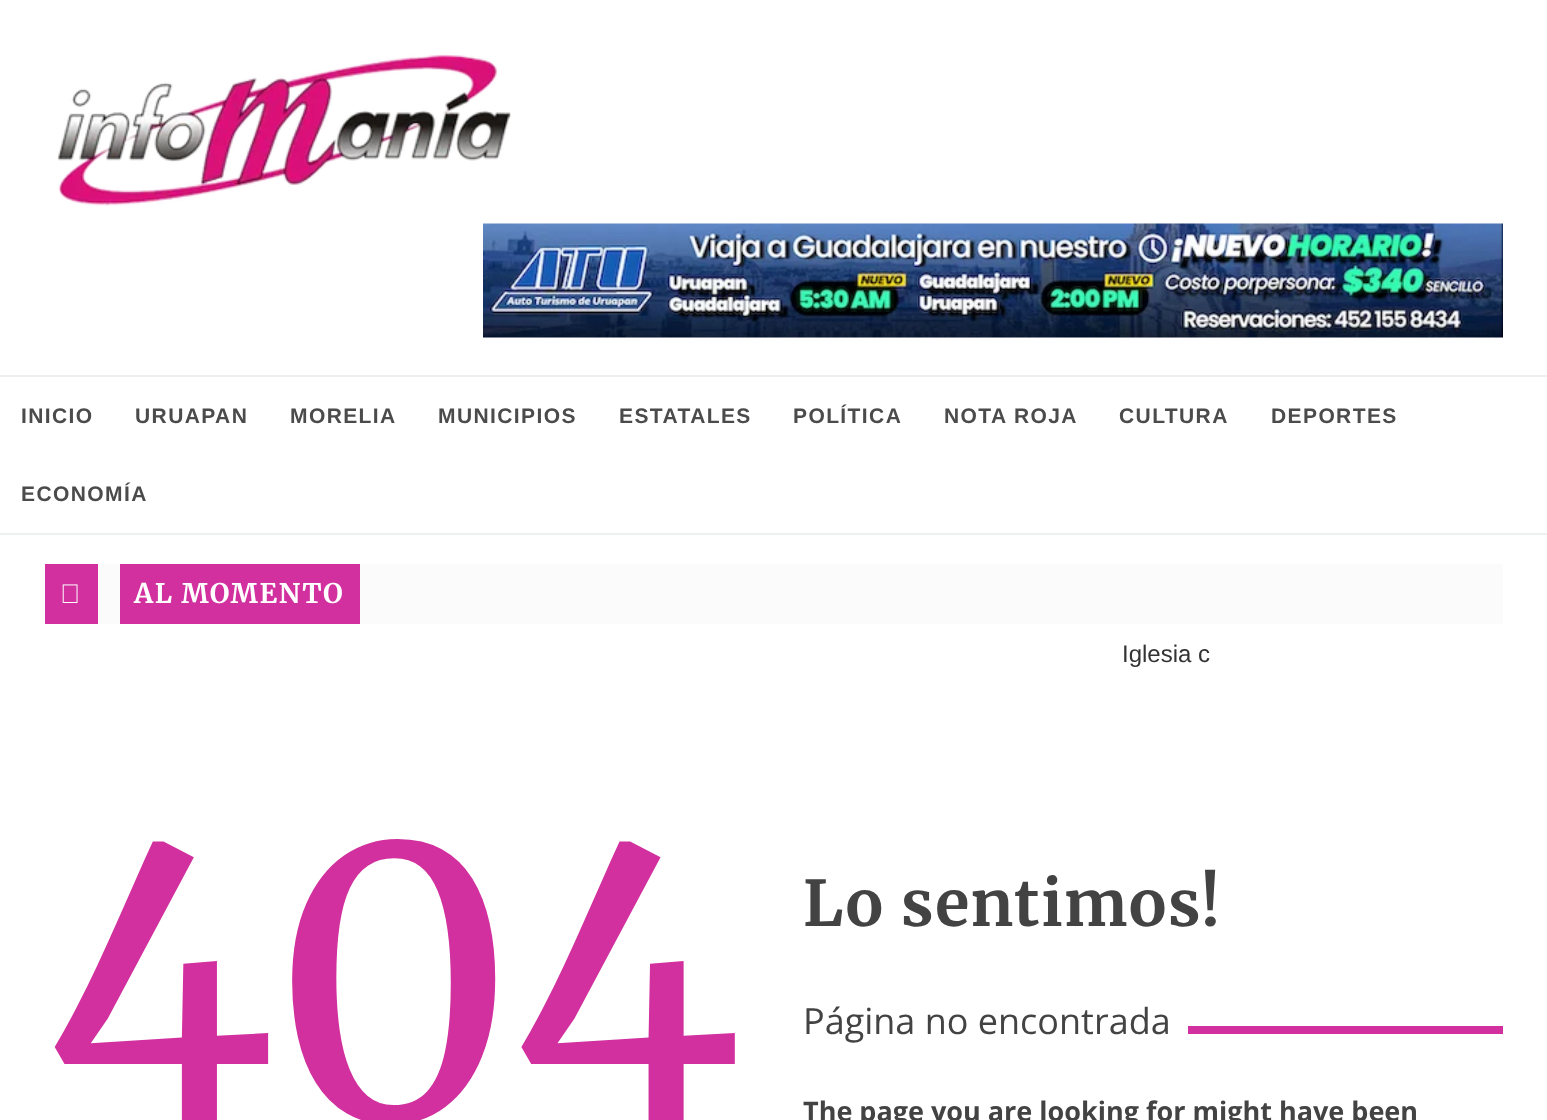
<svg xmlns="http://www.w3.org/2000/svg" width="1547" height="1120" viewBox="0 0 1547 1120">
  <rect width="100%" height="100%" fill="rgb(255,255,255)"/>
  <image x="57" y="54" width="454" height="152" href="pic1.png"/>
  <image x="483" y="223" width="1020" height="115" href="pic2.png"/>
  <rect x="0" y="375" width="1547" height="2" fill="rgb(236,240,241)"/>
  <rect x="0" y="533" width="1547" height="2" fill="rgb(236,240,241)"/>
  <g font-family="Liberation Sans" font-size="21" font-weight="bold" letter-spacing="1.4" fill="rgb(75,75,75)">
    <text x="21" y="423">INICIO</text>
    <text x="135" y="423">URUAPAN</text>
    <text x="290" y="423">MORELIA</text>
    <text x="438" y="423">MUNICIPIOS</text>
    <text x="619" y="423">ESTATALES</text>
    <text x="793" y="423">POLÍTICA</text>
    <text x="944" y="423">NOTA ROJA</text>
    <text x="1119" y="423">CULTURA</text>
    <text x="1271" y="423">DEPORTES</text>
    <text x="21" y="501">ECONOMÍA</text>
  </g>
  <rect x="98" y="564" width="1405" height="60" fill="rgb(251,251,251)"/>
  <rect x="45" y="564" width="53" height="60" fill="rgb(209,48,158)"/>
  <image x="62" y="584" width="16" height="19" href="pic3.png"/>
  <rect x="120" y="564" width="240" height="60" fill="rgb(209,48,158)"/>
  <text x="134" y="603" font-family="Merriweather" font-size="27" font-weight="bold" letter-spacing="1.5" fill="rgb(255,255,255)">AL MOMENTO</text>
  <text x="1122" y="662" font-family="Liberation Sans" font-size="24" fill="rgb(51,51,51)">Iglesia c</text>
  <text x="45" y="1121" font-family="Merriweather" font-size="375" letter-spacing="1.5" fill="rgb(209,48,158)">404</text>
  <text x="803" y="926" font-family="Merriweather" font-size="63" font-weight="bold" letter-spacing="1.5" fill="rgb(67,67,67)">Lo sentimos!</text>
  <text x="803" y="1034" font-family="Open Sans" font-size="36" fill="rgb(67,67,67)">Página no encontrada</text>
  <rect x="1188" y="1026" width="315" height="8" fill="rgb(209,48,158)"/>
  <text x="803" y="1121" font-family="Open Sans" font-size="27" font-weight="bold" fill="rgb(67,67,67)">The page you are looking for might have been</text>
</svg>
